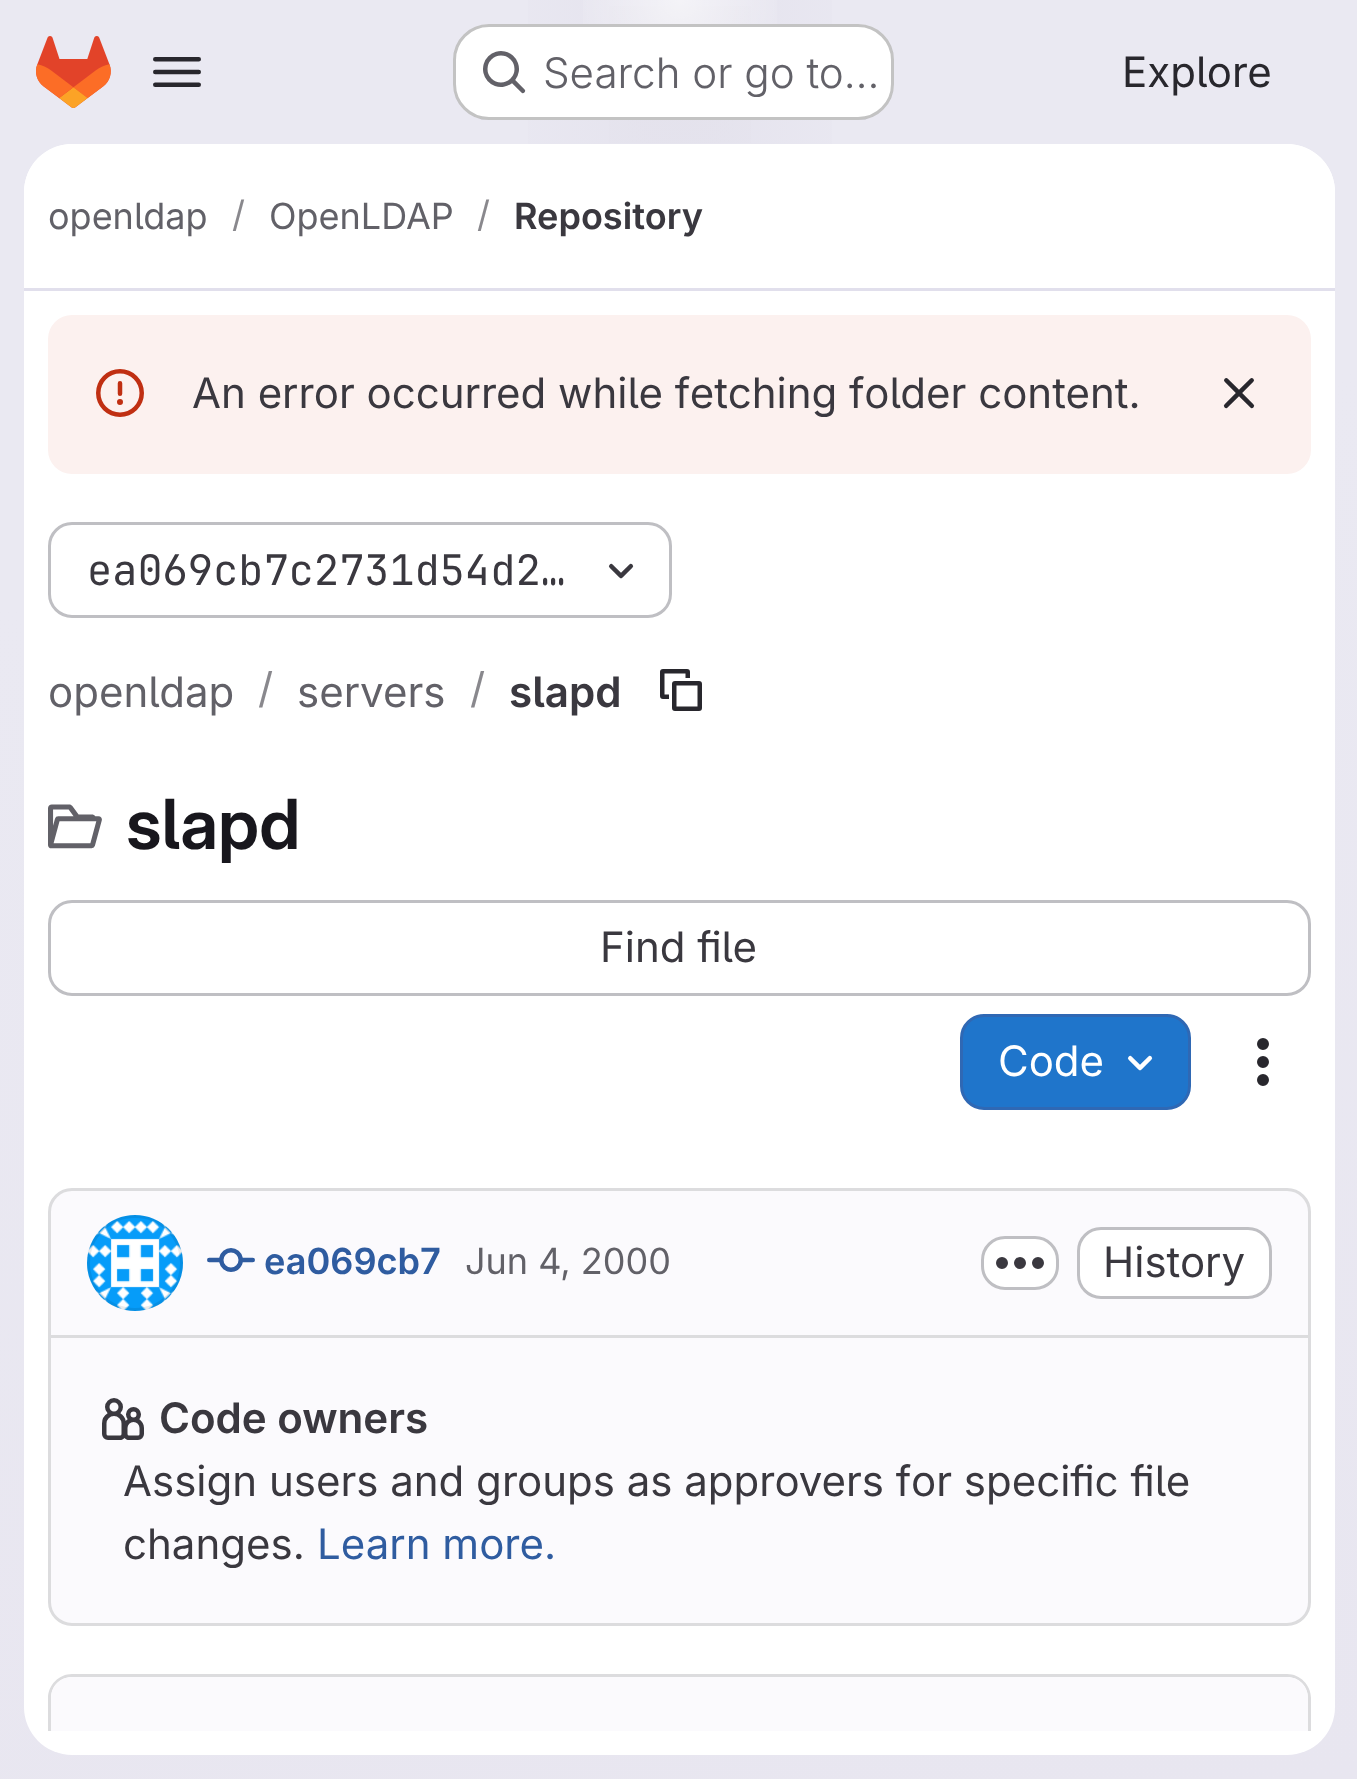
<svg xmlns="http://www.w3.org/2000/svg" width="1357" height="1779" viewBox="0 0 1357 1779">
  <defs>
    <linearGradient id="g1" gradientUnits="userSpaceOnUse" x1="852" y1="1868" x2="507" y2="-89"><stop offset="0" stop-color="rgb(232,230,240)"/><stop offset="0.7" stop-color="rgb(234,233,242)"/></linearGradient>
    <radialGradient id="g2" gradientUnits="userSpaceOnUse" cx="0" cy="0" r="1" gradientTransform="matrix(680 0 0 1779 680 0)"><stop offset="0" stop-color="rgb(228,226,237)"/><stop offset="0.31" stop-color="rgb(228,226,237)" stop-opacity="0"/></radialGradient>
    <radialGradient id="g3" gradientUnits="userSpaceOnUse" cx="0" cy="0" r="1" gradientTransform="matrix(680 0 0 1779 680 0)"><stop offset="0" stop-color="rgb(228,226,236)"/><stop offset="0.22" stop-color="rgb(228,226,236)" stop-opacity="0"/></radialGradient>
    <radialGradient id="g4" gradientUnits="userSpaceOnUse" cx="680" cy="0" r="1904"><stop offset="0" stop-color="rgb(255,255,255)" stop-opacity="0.6"/><stop offset="0.06" stop-color="rgb(255,255,255)" stop-opacity="0"/></radialGradient>
    <clipPath id="clip1"><rect x="24" y="291" width="1311" height="1440"/></clipPath>
    <clipPath id="clip2"><rect x="51" y="1677" width="1257" height="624" rx="21"/></clipPath>
  </defs>
  <rect width="100%" height="100%" fill="rgb(255,255,255)"/>
  <rect x="0" y="0" width="1357" height="1779" fill="url(#g1)"/>
  <rect x="528" y="0" width="304" height="144" fill="url(#g2)"/>
  <rect x="609" y="6" width="142" height="137" fill="url(#g3)"/>
  <rect x="583" y="0" width="194" height="24" fill="url(#g4)"/>
  <image x="36" y="36" width="75" height="72" href="pic1.png"/>
  <image x="153" y="57" width="48" height="30" href="pic2.png"/>
  <rect x="453" y="24" width="441" height="96" rx="36" fill="rgb(255,255,255)"/>
  <rect x="454.5" y="25.5" width="438" height="93" rx="34.5" fill="none" stroke="rgba(5,5,6,0.24)" stroke-width="3"/>
  <image x="483" y="51" width="43" height="43" href="pic3.png"/>
  <text x="543" y="88" font-family="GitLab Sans" font-size="42" font-weight="300" fill="rgb(98,97,104)">Search or go to…</text>
  <text x="1122" y="87" font-family="GitLab Sans" font-size="42" fill="rgb(40,39,45)">Explore</text>
  <rect x="24" y="144" width="1311" height="1611" rx="48" fill="rgb(255,255,255)"/>
  <path d="M72 144H1287C1313.5 144 1335 165.5 1335 192V291H24V192C24 165.5 45.5 144 72 144Z" fill="rgb(255,255,255)"/>
  <rect x="24" y="288" width="1311" height="3" fill="rgb(225,223,236)"/>
  <text x="48" y="229" font-family="GitLab Sans" font-size="36" fill="rgb(98,97,104)">openldap</text>
  <text x="232" y="227" font-family="GitLab Sans" font-size="36" fill="rgb(137,136,141)">/</text>
  <text x="269" y="229" font-family="GitLab Sans" font-size="36" fill="rgb(98,97,104)">OpenLDAP</text>
  <text x="477" y="227" font-family="GitLab Sans" font-size="36" fill="rgb(137,136,141)">/</text>
  <text x="514" y="229" font-family="'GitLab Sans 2'" font-size="36" font-weight="600" fill="rgb(58,56,63)">Repository</text>
  <rect x="48" y="315" width="1263" height="159" rx="24" fill="rgb(252,241,239)"/>
  <image x="96" y="369" width="48" height="48" href="pic4.png"/>
  <text x="192" y="408" font-family="GitLab Sans" font-size="42" fill="rgb(58,56,63)">An error occurred while fetching folder content.</text>
  <image x="1223" y="378" width="32" height="31" href="pic5.png"/>
  <rect x="49.5" y="523.5" width="621" height="93" rx="22.5" fill="none" stroke="rgb(191,191,195)" stroke-width="3"/>
  <text x="87" y="585" font-family="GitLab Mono" font-size="42" fill="rgb(58,56,63)">ea069cb7c2731d54d2…</text>
  <image x="608" y="563" width="26" height="16" href="pic6.png"/>
  <text x="48" y="707" font-family="GitLab Sans" font-size="42" fill="rgb(98,97,104)">openldap</text>
  <text x="258" y="703" font-family="GitLab Sans" font-size="42" fill="rgb(137,136,141)">/</text>
  <text x="297" y="707" font-family="GitLab Sans" font-size="42" fill="rgb(98,97,104)">servers</text>
  <text x="470" y="703" font-family="GitLab Sans" font-size="42" fill="rgb(137,136,141)">/</text>
  <text x="509" y="707" font-family="'GitLab Sans 2'" font-size="42" font-weight="600" fill="rgb(58,56,63)">slapd</text>
  <image x="660" y="669" width="42" height="42" href="pic7.png"/>
  <image x="48" y="804" width="54" height="45" href="pic8.png"/>
  <text x="126" y="849" font-family="GitLab Sans" font-size="69" font-weight="600" fill="rgb(24,23,29)">slapd</text>
  <rect x="49.5" y="901.5" width="1260" height="93" rx="22.5" fill="none" stroke="rgb(191,191,195)" stroke-width="3"/>
  <text x="600" y="962" font-family="GitLab Sans" font-size="42" fill="rgb(58,56,63)">Find file</text>
  <rect x="961.5" y="1015.5" width="228" height="93" rx="22.5" fill="rgb(31,117,203)" stroke="rgb(47,104,180)" stroke-width="3"/>
  <text x="998" y="1076" font-family="GitLab Sans" font-size="42" fill="rgb(255,255,255)">Code</text>
  <image x="1127" y="1055" width="26" height="16" href="pic9.png"/>
  <image x="1257" y="1038" width="12" height="48" href="pic10.png"/>
  <rect x="49.5" y="1189.5" width="1260" height="435" rx="22.5" fill="rgb(251,250,253)" stroke="rgb(220,220,222)" stroke-width="3"/>
  <image x="87" y="1215" width="96" height="96" href="pic11.png"/>
  <circle cx="135" cy="1263" r="46.5" fill="none" stroke="rgba(5,5,6,0.08)" stroke-width="3"/>
  <image x="207" y="1248" width="48" height="24" href="pic12.png"/>
  <text x="264" y="1274" font-family="'GitLab Sans 2'" font-size="36" font-weight="600" fill="rgb(47,92,160)">ea069cb7</text>
  <text x="465" y="1274" font-family="GitLab Sans" font-size="36" fill="rgb(98,97,104)">Jun 4, 2000</text>
  <rect x="982.5" y="1237.5" width="75" height="51" rx="22.5" fill="rgb(255,255,255)" stroke="rgb(191,191,195)" stroke-width="3"/>
  <image x="996" y="1257" width="48" height="12" href="pic13.png"/>
  <rect x="1078.5" y="1228.5" width="192" height="69" rx="22.5" fill="rgb(255,255,255)" stroke="rgb(191,191,195)" stroke-width="3"/>
  <text x="1103" y="1277" font-family="GitLab Sans" font-size="42" fill="rgb(58,56,63)">History</text>
  <rect x="51" y="1335" width="1257" height="3" fill="rgb(220,220,222)"/>
  <image x="102" y="1398" width="42" height="42" href="pic14.png"/>
  <text x="159" y="1433" font-family="'GitLab Sans 2'" font-size="42" font-weight="600" fill="rgb(58,56,63)">Code owners</text>
  <g font-family="GitLab Sans" font-size="42" fill="rgb(58,56,63)">
    <text>
      <tspan x="123" y="1496">Assign users and groups as approvers for specific file</tspan>
      <tspan x="123" y="1559">changes.</tspan>
    </text>
  </g>
  <text x="317" y="1559" font-family="GitLab Sans" font-size="42" fill="rgb(47,92,160)">Learn more.</text>
  <g clip-path="url(#clip1)">
    <path d="M72 1674C59 1674 48 1685 48 1698V1749L51 1750V1698C51 1686 60 1677 72 1677H1287C1299 1677 1308 1686 1308 1698V1750L1311 1749V1698C1311 1685 1300 1674 1287 1674Z" fill="rgb(220,220,222)"/>
  </g>
  <path d="M72 1677H852V1731H51V1698C51 1686.5 60.5 1677 72 1677Z" fill="rgb(251,250,253)"/>
  <g clip-path="url(#clip1)">
    <g clip-path="url(#clip2)">
      <path d="M852 1677H1335V1707C1335 1733.5 1313.5 1755 1287 1755H852Z" fill="rgb(251,250,253)"/>
    </g>
  </g>
</svg>
